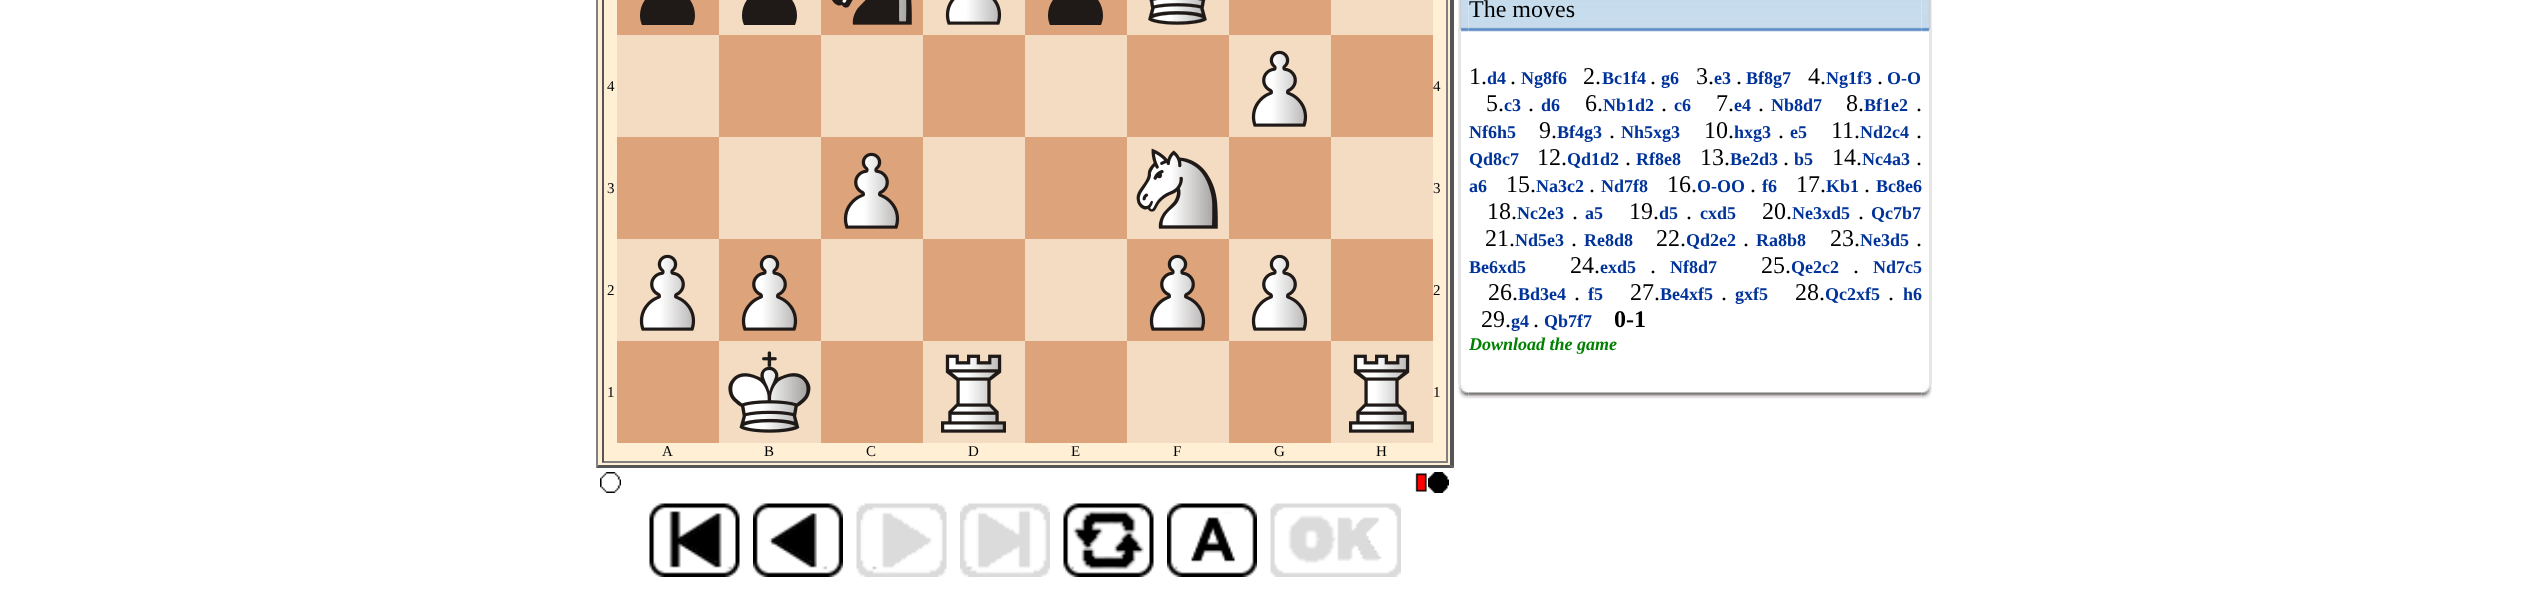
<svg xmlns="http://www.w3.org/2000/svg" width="2523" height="602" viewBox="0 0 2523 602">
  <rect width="100%" height="100%" fill="rgb(255,255,255)"/>
  <rect x="596" y="0" width="858" height="468" fill="rgb(255,239,213)"/>
  <path d="M1454-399V468L1450 465V-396Z" fill="rgb(85,85,85)"/>
  <path d="M1454 468H596L598 465H1450Z" fill="rgb(85,85,85)"/>
  <path d="M596 468V-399L598-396V465Z" fill="rgb(128,128,128)"/>
  <rect x="1446" y="0" width="2" height="462" fill="rgb(128,128,128)"/>
  <rect x="602" y="461" width="846" height="2" fill="rgb(128,128,128)"/>
  <rect x="602" y="0" width="2" height="462" fill="rgb(85,85,85)"/>
  <rect x="617" y="0" width="102" height="35" fill="rgb(221,163,123)"/>
  <path d="M668 25H642C636 11 644-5 658-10C646-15 649-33 662-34C659-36 658-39 658-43C659-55 679-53 677-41C677-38 675-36 673-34C686-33 689-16 677-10C691-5 699 11 693 25Z" fill="rgb(31,26,23)" fill-rule="evenodd"/>
  <rect x="719" y="0" width="102" height="35" fill="rgb(243,220,194)"/>
  <path d="M770 25H744C738 11 746-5 760-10C748-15 751-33 764-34C761-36 760-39 760-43C761-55 781-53 779-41C779-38 777-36 775-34C788-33 791-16 779-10C793-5 801 11 795 25Z" fill="rgb(31,26,23)" fill-rule="evenodd"/>
  <rect x="821" y="0" width="102" height="35" fill="rgb(221,163,123)"/>
  <image x="832" y="0" width="80" height="25" href="pic1.png"/>
  <rect x="923" y="0" width="102" height="35" fill="rgb(243,220,194)"/>
  <image x="945" y="0" width="57" height="25" href="pic2.png"/>
  <rect x="1025" y="0" width="102" height="35" fill="rgb(221,163,123)"/>
  <path d="M1076 25H1050C1044 11 1052-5 1066-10C1054-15 1057-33 1070-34C1067-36 1066-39 1066-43C1067-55 1087-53 1085-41C1085-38 1083-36 1081-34C1094-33 1097-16 1085-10C1099-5 1107 11 1101 25Z" fill="rgb(31,26,23)" fill-rule="evenodd"/>
  <rect x="1127" y="0" width="102" height="35" fill="rgb(243,220,194)"/>
  <image x="1148" y="0" width="59" height="25" href="pic3.png"/>
  <rect x="1229" y="0" width="102" height="35" fill="rgb(221,163,123)"/>
  <rect x="1331" y="0" width="102" height="35" fill="rgb(243,220,194)"/>
  <text x="607" y="91" font-family="Liberation Serif" font-size="15" fill="rgb(0,0,0)">4</text>
  <rect x="617" y="35" width="102" height="102" fill="rgb(243,220,194)"/>
  <rect x="719" y="35" width="102" height="102" fill="rgb(221,163,123)"/>
  <rect x="821" y="35" width="102" height="102" fill="rgb(243,220,194)"/>
  <rect x="923" y="35" width="102" height="102" fill="rgb(221,163,123)"/>
  <rect x="1025" y="35" width="102" height="102" fill="rgb(243,220,194)"/>
  <rect x="1127" y="35" width="102" height="102" fill="rgb(221,163,123)"/>
  <rect x="1229" y="35" width="102" height="102" fill="rgb(243,220,194)"/>
  <image x="1251" y="50" width="57" height="77" href="pic4.png"/>
  <rect x="1331" y="35" width="102" height="102" fill="rgb(221,163,123)"/>
  <g font-family="Liberation Serif" font-size="15" fill="rgb(0,0,0)">
    <text x="1433" y="91">4</text>
    <text x="607" y="193">3</text>
  </g>
  <rect x="617" y="137" width="102" height="102" fill="rgb(221,163,123)"/>
  <rect x="719" y="137" width="102" height="102" fill="rgb(243,220,194)"/>
  <rect x="821" y="137" width="102" height="102" fill="rgb(221,163,123)"/>
  <image x="843" y="152" width="57" height="77" href="pic5.png"/>
  <rect x="923" y="137" width="102" height="102" fill="rgb(243,220,194)"/>
  <rect x="1025" y="137" width="102" height="102" fill="rgb(221,163,123)"/>
  <rect x="1127" y="137" width="102" height="102" fill="rgb(243,220,194)"/>
  <image x="1136" y="148" width="82" height="81" href="pic6.png"/>
  <rect x="1229" y="137" width="102" height="102" fill="rgb(221,163,123)"/>
  <rect x="1331" y="137" width="102" height="102" fill="rgb(243,220,194)"/>
  <g font-family="Liberation Serif" font-size="15" fill="rgb(0,0,0)">
    <text x="1433" y="193">3</text>
    <text x="607" y="295">2</text>
  </g>
  <rect x="617" y="239" width="102" height="102" fill="rgb(243,220,194)"/>
  <image x="639" y="254" width="57" height="77" href="pic4.png"/>
  <rect x="719" y="239" width="102" height="102" fill="rgb(221,163,123)"/>
  <image x="741" y="254" width="57" height="77" href="pic5.png"/>
  <rect x="821" y="239" width="102" height="102" fill="rgb(243,220,194)"/>
  <rect x="923" y="239" width="102" height="102" fill="rgb(221,163,123)"/>
  <rect x="1025" y="239" width="102" height="102" fill="rgb(243,220,194)"/>
  <rect x="1127" y="239" width="102" height="102" fill="rgb(221,163,123)"/>
  <image x="1149" y="254" width="57" height="77" href="pic5.png"/>
  <rect x="1229" y="239" width="102" height="102" fill="rgb(243,220,194)"/>
  <image x="1251" y="254" width="57" height="77" href="pic4.png"/>
  <rect x="1331" y="239" width="102" height="102" fill="rgb(221,163,123)"/>
  <g font-family="Liberation Serif" font-size="15" fill="rgb(0,0,0)">
    <text x="1433" y="295">2</text>
    <text x="607" y="397">1</text>
  </g>
  <rect x="617" y="341" width="102" height="102" fill="rgb(221,163,123)"/>
  <rect x="719" y="341" width="102" height="102" fill="rgb(243,220,194)"/>
  <image x="728" y="351" width="83" height="82" href="pic7.png"/>
  <rect x="821" y="341" width="102" height="102" fill="rgb(221,163,123)"/>
  <rect x="923" y="341" width="102" height="102" fill="rgb(243,220,194)"/>
  <image x="941" y="354" width="65" height="79" href="pic8.png"/>
  <rect x="1025" y="341" width="102" height="102" fill="rgb(221,163,123)"/>
  <rect x="1127" y="341" width="102" height="102" fill="rgb(243,220,194)"/>
  <rect x="1229" y="341" width="102" height="102" fill="rgb(221,163,123)"/>
  <rect x="1331" y="341" width="102" height="102" fill="rgb(243,220,194)"/>
  <image x="1349" y="354" width="65" height="79" href="pic8.png"/>
  <g font-family="Liberation Serif" font-size="15" fill="rgb(0,0,0)">
    <text x="1433" y="397">1</text>
    <text x="662" y="456">A</text>
    <text x="764" y="456">B</text>
    <text x="866" y="456">C</text>
    <text x="968" y="456">D</text>
    <text x="1071" y="456">E</text>
    <text x="1173" y="456">F</text>
    <text x="1274" y="456">G</text>
    <text x="1376" y="456">H</text>
  </g>
  <image x="600" y="472" width="21" height="21" href="pic9.png"/>
  <image x="1415" y="473" width="12" height="19" href="pic10.png"/>
  <image x="1428" y="472" width="21" height="21" href="pic11.png"/>
  <image x="649" y="503" width="91" height="74" href="pic12.png"/>
  <image x="753" y="503" width="90" height="74" href="pic13.png"/>
  <image x="856" y="503" width="91" height="74" href="pic14.png"/>
  <image x="960" y="503" width="90" height="74" href="pic15.png"/>
  <image x="1063" y="503" width="91" height="74" href="pic16.png"/>
  <image x="1167" y="503" width="90" height="74" href="pic17.png"/>
  <image x="1270" y="503" width="131" height="74" href="pic18.png"/>
  <image x="1458" y="0" width="11" height="33" href="pic19.png"/>
  <image x="1468" y="0" width="454" height="32" href="pic20.png"/>
  <text x="1469" y="17" font-family="Liberation Serif" font-size="24" fill="rgb(0,0,0)">The moves</text>
  <image x="1921" y="0" width="11" height="33" href="pic21.png"/>
  <rect x="1458" y="32" width="3" height="353" fill="rgb(229,229,229)"/>
  <text x="1469" y="84" font-family="Liberation Serif" font-size="24" fill="rgb(0,0,0)">1.</text>
  <text x="1487" y="84" font-family="Liberation Serif" font-size="18" font-weight="bold" fill="rgb(0,51,153)">d4</text>
  <text x="1510" y="84" font-family="Liberation Serif" font-size="24" fill="rgb(0,0,0)">.</text>
  <text x="1521" y="84" font-family="Liberation Serif" font-size="18" font-weight="bold" fill="rgb(0,51,153)">Ng8f6</text>
  <text x="1583" y="84" font-family="Liberation Serif" font-size="24" fill="rgb(0,0,0)">2.</text>
  <text x="1602" y="84" font-family="Liberation Serif" font-size="18" font-weight="bold" fill="rgb(0,51,153)">Bc1f4</text>
  <text x="1650" y="84" font-family="Liberation Serif" font-size="24" fill="rgb(0,0,0)">.</text>
  <text x="1661" y="84" font-family="Liberation Serif" font-size="18" font-weight="bold" fill="rgb(0,51,153)">g6</text>
  <text x="1696" y="84" font-family="Liberation Serif" font-size="24" fill="rgb(0,0,0)">3.</text>
  <text x="1714" y="84" font-family="Liberation Serif" font-size="18" font-weight="bold" fill="rgb(0,51,153)">e3</text>
  <text x="1736" y="84" font-family="Liberation Serif" font-size="24" fill="rgb(0,0,0)">.</text>
  <text x="1746" y="84" font-family="Liberation Serif" font-size="18" font-weight="bold" fill="rgb(0,51,153)">Bf8g7</text>
  <text x="1808" y="84" font-family="Liberation Serif" font-size="24" fill="rgb(0,0,0)">4.</text>
  <text x="1826" y="84" font-family="Liberation Serif" font-size="18" font-weight="bold" fill="rgb(0,51,153)">Ng1f3</text>
  <text x="1877" y="84" font-family="Liberation Serif" font-size="24" fill="rgb(0,0,0)">.</text>
  <text x="1887" y="84" font-family="Liberation Serif" font-size="18" font-weight="bold" fill="rgb(0,51,153)">O-O</text>
  <text x="1486" y="111" font-family="Liberation Serif" font-size="24" fill="rgb(0,0,0)">5.</text>
  <text x="1504" y="111" font-family="Liberation Serif" font-size="18" font-weight="bold" fill="rgb(0,51,153)">c3</text>
  <text x="1528" y="111" font-family="Liberation Serif" font-size="24" fill="rgb(0,0,0)">.</text>
  <text x="1541" y="111" font-family="Liberation Serif" font-size="18" font-weight="bold" fill="rgb(0,51,153)">d6</text>
  <text x="1585" y="111" font-family="Liberation Serif" font-size="24" fill="rgb(0,0,0)">6.</text>
  <text x="1603" y="111" font-family="Liberation Serif" font-size="18" font-weight="bold" fill="rgb(0,51,153)">Nb1d2</text>
  <text x="1661" y="111" font-family="Liberation Serif" font-size="24" fill="rgb(0,0,0)">.</text>
  <text x="1674" y="111" font-family="Liberation Serif" font-size="18" font-weight="bold" fill="rgb(0,51,153)">c6</text>
  <text x="1716" y="111" font-family="Liberation Serif" font-size="24" fill="rgb(0,0,0)">7.</text>
  <text x="1734" y="111" font-family="Liberation Serif" font-size="18" font-weight="bold" fill="rgb(0,51,153)">e4</text>
  <text x="1758" y="111" font-family="Liberation Serif" font-size="24" fill="rgb(0,0,0)">.</text>
  <text x="1771" y="111" font-family="Liberation Serif" font-size="18" font-weight="bold" fill="rgb(0,51,153)">Nb8d7</text>
  <text x="1846" y="111" font-family="Liberation Serif" font-size="24" fill="rgb(0,0,0)">8.</text>
  <text x="1864" y="111" font-family="Liberation Serif" font-size="18" font-weight="bold" fill="rgb(0,51,153)">Bf1e2</text>
  <text x="1916" y="111" font-family="Liberation Serif" font-size="24" fill="rgb(0,0,0)">.</text>
  <text x="1469" y="138" font-family="Liberation Serif" font-size="18" font-weight="bold" fill="rgb(0,51,153)">Nf6h5</text>
  <text x="1539" y="138" font-family="Liberation Serif" font-size="24" fill="rgb(0,0,0)">9.</text>
  <text x="1557" y="138" font-family="Liberation Serif" font-size="18" font-weight="bold" fill="rgb(0,51,153)">Bf4g3</text>
  <text x="1609" y="138" font-family="Liberation Serif" font-size="24" fill="rgb(0,0,0)">.</text>
  <text x="1621" y="138" font-family="Liberation Serif" font-size="18" font-weight="bold" fill="rgb(0,51,153)">Nh5xg3</text>
  <text x="1704" y="138" font-family="Liberation Serif" font-size="24" fill="rgb(0,0,0)">10.</text>
  <text x="1734" y="138" font-family="Liberation Serif" font-size="18" font-weight="bold" fill="rgb(0,51,153)">hxg3</text>
  <text x="1778" y="138" font-family="Liberation Serif" font-size="24" fill="rgb(0,0,0)">.</text>
  <text x="1790" y="138" font-family="Liberation Serif" font-size="18" font-weight="bold" fill="rgb(0,51,153)">e5</text>
  <text x="1831" y="138" font-family="Liberation Serif" font-size="24" fill="rgb(0,0,0)">11.</text>
  <text x="1860" y="138" font-family="Liberation Serif" font-size="18" font-weight="bold" fill="rgb(0,51,153)">Nd2c4</text>
  <text x="1916" y="138" font-family="Liberation Serif" font-size="24" fill="rgb(0,0,0)">.</text>
  <text x="1469" y="165" font-family="Liberation Serif" font-size="18" font-weight="bold" fill="rgb(0,51,153)">Qd8c7</text>
  <text x="1537" y="165" font-family="Liberation Serif" font-size="24" fill="rgb(0,0,0)">12.</text>
  <text x="1567" y="165" font-family="Liberation Serif" font-size="18" font-weight="bold" fill="rgb(0,51,153)">Qd1d2</text>
  <text x="1625" y="165" font-family="Liberation Serif" font-size="24" fill="rgb(0,0,0)">.</text>
  <text x="1636" y="165" font-family="Liberation Serif" font-size="18" font-weight="bold" fill="rgb(0,51,153)">Rf8e8</text>
  <text x="1700" y="165" font-family="Liberation Serif" font-size="24" fill="rgb(0,0,0)">13.</text>
  <text x="1730" y="165" font-family="Liberation Serif" font-size="18" font-weight="bold" fill="rgb(0,51,153)">Be2d3</text>
  <text x="1783" y="165" font-family="Liberation Serif" font-size="24" fill="rgb(0,0,0)">.</text>
  <text x="1794" y="165" font-family="Liberation Serif" font-size="18" font-weight="bold" fill="rgb(0,51,153)">b5</text>
  <text x="1832" y="165" font-family="Liberation Serif" font-size="24" fill="rgb(0,0,0)">14.</text>
  <text x="1862" y="165" font-family="Liberation Serif" font-size="18" font-weight="bold" fill="rgb(0,51,153)">Nc4a3</text>
  <text x="1916" y="165" font-family="Liberation Serif" font-size="24" fill="rgb(0,0,0)">.</text>
  <text x="1469" y="192" font-family="Liberation Serif" font-size="18" font-weight="bold" fill="rgb(0,51,153)">a6</text>
  <text x="1506" y="192" font-family="Liberation Serif" font-size="24" fill="rgb(0,0,0)">15.</text>
  <text x="1536" y="192" font-family="Liberation Serif" font-size="18" font-weight="bold" fill="rgb(0,51,153)">Na3c2</text>
  <text x="1589" y="192" font-family="Liberation Serif" font-size="24" fill="rgb(0,0,0)">.</text>
  <text x="1601" y="192" font-family="Liberation Serif" font-size="18" font-weight="bold" fill="rgb(0,51,153)">Nd7f8</text>
  <text x="1667" y="192" font-family="Liberation Serif" font-size="24" fill="rgb(0,0,0)">16.</text>
  <text x="1697" y="192" font-family="Liberation Serif" font-size="18" font-weight="bold" fill="rgb(0,51,153)">O-OO</text>
  <text x="1750" y="192" font-family="Liberation Serif" font-size="24" fill="rgb(0,0,0)">.</text>
  <text x="1762" y="192" font-family="Liberation Serif" font-size="18" font-weight="bold" fill="rgb(0,51,153)">f6</text>
  <text x="1796" y="192" font-family="Liberation Serif" font-size="24" fill="rgb(0,0,0)">17.</text>
  <text x="1826" y="192" font-family="Liberation Serif" font-size="18" font-weight="bold" fill="rgb(0,51,153)">Kb1</text>
  <text x="1864" y="192" font-family="Liberation Serif" font-size="24" fill="rgb(0,0,0)">.</text>
  <text x="1876" y="192" font-family="Liberation Serif" font-size="18" font-weight="bold" fill="rgb(0,51,153)">Bc8e6</text>
  <text x="1487" y="219" font-family="Liberation Serif" font-size="24" fill="rgb(0,0,0)">18.</text>
  <text x="1517" y="219" font-family="Liberation Serif" font-size="18" font-weight="bold" fill="rgb(0,51,153)">Nc2e3</text>
  <text x="1572" y="219" font-family="Liberation Serif" font-size="24" fill="rgb(0,0,0)">.</text>
  <text x="1585" y="219" font-family="Liberation Serif" font-size="18" font-weight="bold" fill="rgb(0,51,153)">a5</text>
  <text x="1629" y="219" font-family="Liberation Serif" font-size="24" fill="rgb(0,0,0)">19.</text>
  <text x="1659" y="219" font-family="Liberation Serif" font-size="18" font-weight="bold" fill="rgb(0,51,153)">d5</text>
  <text x="1686" y="219" font-family="Liberation Serif" font-size="24" fill="rgb(0,0,0)">.</text>
  <text x="1700" y="219" font-family="Liberation Serif" font-size="18" font-weight="bold" fill="rgb(0,51,153)">cxd5</text>
  <text x="1762" y="219" font-family="Liberation Serif" font-size="24" fill="rgb(0,0,0)">20.</text>
  <text x="1792" y="219" font-family="Liberation Serif" font-size="18" font-weight="bold" fill="rgb(0,51,153)">Ne3xd5</text>
  <text x="1858" y="219" font-family="Liberation Serif" font-size="24" fill="rgb(0,0,0)">.</text>
  <text x="1871" y="219" font-family="Liberation Serif" font-size="18" font-weight="bold" fill="rgb(0,51,153)">Qc7b7</text>
  <text x="1485" y="246" font-family="Liberation Serif" font-size="24" fill="rgb(0,0,0)">21.</text>
  <text x="1515" y="246" font-family="Liberation Serif" font-size="18" font-weight="bold" fill="rgb(0,51,153)">Nd5e3</text>
  <text x="1571" y="246" font-family="Liberation Serif" font-size="24" fill="rgb(0,0,0)">.</text>
  <text x="1584" y="246" font-family="Liberation Serif" font-size="18" font-weight="bold" fill="rgb(0,51,153)">Re8d8</text>
  <text x="1656" y="246" font-family="Liberation Serif" font-size="24" fill="rgb(0,0,0)">22.</text>
  <text x="1686" y="246" font-family="Liberation Serif" font-size="18" font-weight="bold" fill="rgb(0,51,153)">Qd2e2</text>
  <text x="1743" y="246" font-family="Liberation Serif" font-size="24" fill="rgb(0,0,0)">.</text>
  <text x="1756" y="246" font-family="Liberation Serif" font-size="18" font-weight="bold" fill="rgb(0,51,153)">Ra8b8</text>
  <text x="1830" y="246" font-family="Liberation Serif" font-size="24" fill="rgb(0,0,0)">23.</text>
  <text x="1860" y="246" font-family="Liberation Serif" font-size="18" font-weight="bold" fill="rgb(0,51,153)">Ne3d5</text>
  <text x="1916" y="246" font-family="Liberation Serif" font-size="24" fill="rgb(0,0,0)">.</text>
  <text x="1469" y="273" font-family="Liberation Serif" font-size="18" font-weight="bold" fill="rgb(0,51,153)">Be6xd5</text>
  <text x="1570" y="273" font-family="Liberation Serif" font-size="24" fill="rgb(0,0,0)">24.</text>
  <text x="1600" y="273" font-family="Liberation Serif" font-size="18" font-weight="bold" fill="rgb(0,51,153)">exd5</text>
  <text x="1650" y="273" font-family="Liberation Serif" font-size="24" fill="rgb(0,0,0)">.</text>
  <text x="1670" y="273" font-family="Liberation Serif" font-size="18" font-weight="bold" fill="rgb(0,51,153)">Nf8d7</text>
  <text x="1761" y="273" font-family="Liberation Serif" font-size="24" fill="rgb(0,0,0)">25.</text>
  <text x="1791" y="273" font-family="Liberation Serif" font-size="18" font-weight="bold" fill="rgb(0,51,153)">Qe2c2</text>
  <text x="1853" y="273" font-family="Liberation Serif" font-size="24" fill="rgb(0,0,0)">.</text>
  <text x="1873" y="273" font-family="Liberation Serif" font-size="18" font-weight="bold" fill="rgb(0,51,153)">Nd7c5</text>
  <text x="1488" y="300" font-family="Liberation Serif" font-size="24" fill="rgb(0,0,0)">26.</text>
  <text x="1518" y="300" font-family="Liberation Serif" font-size="18" font-weight="bold" fill="rgb(0,51,153)">Bd3e4</text>
  <text x="1574" y="300" font-family="Liberation Serif" font-size="24" fill="rgb(0,0,0)">.</text>
  <text x="1588" y="300" font-family="Liberation Serif" font-size="18" font-weight="bold" fill="rgb(0,51,153)">f5</text>
  <text x="1630" y="300" font-family="Liberation Serif" font-size="24" fill="rgb(0,0,0)">27.</text>
  <text x="1660" y="300" font-family="Liberation Serif" font-size="18" font-weight="bold" fill="rgb(0,51,153)">Be4xf5</text>
  <text x="1721" y="300" font-family="Liberation Serif" font-size="24" fill="rgb(0,0,0)">.</text>
  <text x="1735" y="300" font-family="Liberation Serif" font-size="18" font-weight="bold" fill="rgb(0,51,153)">gxf5</text>
  <text x="1795" y="300" font-family="Liberation Serif" font-size="24" fill="rgb(0,0,0)">28.</text>
  <text x="1825" y="300" font-family="Liberation Serif" font-size="18" font-weight="bold" fill="rgb(0,51,153)">Qc2xf5</text>
  <text x="1888" y="300" font-family="Liberation Serif" font-size="24" fill="rgb(0,0,0)">.</text>
  <text x="1903" y="300" font-family="Liberation Serif" font-size="18" font-weight="bold" fill="rgb(0,51,153)">h6</text>
  <text x="1481" y="327" font-family="Liberation Serif" font-size="24" fill="rgb(0,0,0)">29.</text>
  <text x="1511" y="327" font-family="Liberation Serif" font-size="18" font-weight="bold" fill="rgb(0,51,153)">g4</text>
  <text x="1533" y="327" font-family="Liberation Serif" font-size="24" fill="rgb(0,0,0)">.</text>
  <text x="1544" y="327" font-family="Liberation Serif" font-size="18" font-weight="bold" fill="rgb(0,51,153)">Qb7f7</text>
  <text x="1614" y="327" font-family="Liberation Serif" font-size="24" font-weight="bold" fill="rgb(0,0,0)">0-1</text>
  <text x="1469" y="350" font-family="Liberation Serif" font-size="18" font-weight="bold" font-style="italic" fill="rgb(0,128,0)">Download the game</text>
  <rect x="1929" y="32" width="3" height="353" fill="rgb(230,230,230)"/>
  <image x="1458" y="385" width="11" height="14" href="pic22.png"/>
  <image x="1468" y="392" width="454" height="7" href="pic23.png"/>
  <image x="1921" y="385" width="11" height="14" href="pic24.png"/>
</svg>
